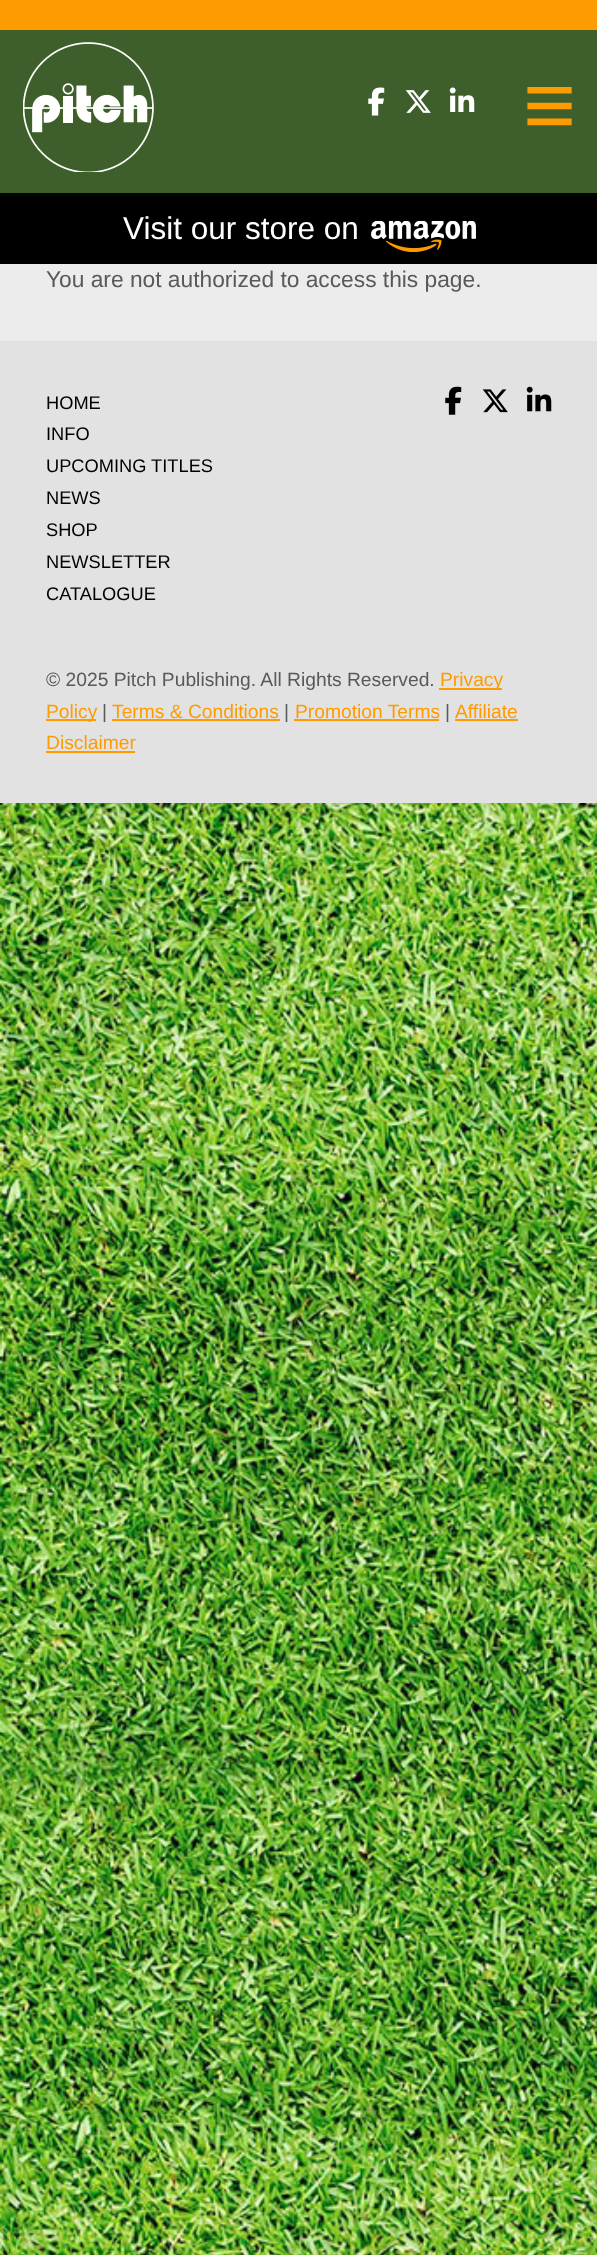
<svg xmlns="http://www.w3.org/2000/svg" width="597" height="2255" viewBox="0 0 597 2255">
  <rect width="100%" height="100%" fill="rgb(255,255,255)"/>
  <image x="0" y="803" width="597" height="1452" href="pic1.png"/>
  <rect x="0" y="0" width="597" height="30" fill="rgb(254,155,0)"/>
  <rect x="0" y="264" width="597" height="77" fill="rgb(237,236,236)"/>
  <rect x="0" y="30" width="597" height="163" fill="rgb(62,94,44)"/>
  <image x="23" y="42" width="131" height="130" href="pic2.png"/>
  <image x="368" y="87" width="17" height="29" href="pic3.png"/>
  <image x="405" y="90" width="26" height="23" href="pic4.png"/>
  <image x="449" y="87" width="26" height="25" href="pic5.png"/>
  <text x="523" y="136" font-family="Liberation Sans" font-size="91" fill="rgb(254,155,0)">≡</text>
  <rect x="0" y="193" width="597" height="71" fill="rgb(0,0,0)"/>
  <text x="123" y="239" font-family="Liberation Sans" font-size="31.5" fill="rgb(255,255,255)">Visit our store on</text>
  <image x="371" y="221" width="105" height="31" href="pic6.png"/>
  <text x="46" y="287" font-family="Liberation Sans" font-size="22.75" fill="rgb(88,89,91)">You are not authorized to access this page.</text>
  <rect x="0" y="341" width="597" height="462" fill="rgb(226,226,226)"/>
  <g font-family="Liberation Sans" font-size="18.25" fill="rgb(0,0,0)">
    <text>
      <tspan x="46" y="409">HOME</tspan>
      <tspan x="46" y="440">INFO</tspan>
      <tspan x="46" y="472">UPCOMING TITLES</tspan>
      <tspan x="46" y="504">NEWS</tspan>
      <tspan x="46" y="536">SHOP</tspan>
      <tspan x="46" y="568">NEWSLETTER</tspan>
      <tspan x="46" y="600">CATALOGUE</tspan>
    </text>
  </g>
  <image x="445" y="386" width="17" height="29" href="pic7.png"/>
  <image x="482" y="389" width="26" height="24" href="pic8.png"/>
  <image x="526" y="386" width="26" height="26" href="pic9.png"/>
  <text x="46" y="686" font-family="Liberation Sans" font-size="19.25" fill="rgb(88,89,91)">© 2025 Pitch Publishing. All Rights Reserved.</text>
  <rect x="439" y="688" width="63" height="2" fill="rgb(254,155,0)"/>
  <text x="440" y="686" font-family="Liberation Sans" font-size="19.25" fill="rgb(254,155,0)">Privacy</text>
  <rect x="46" y="719" width="50" height="2" fill="rgb(254,155,0)"/>
  <text x="46" y="718" font-family="Liberation Sans" font-size="19.25" fill="rgb(254,155,0)">Policy</text>
  <text x="102" y="718" font-family="Liberation Sans" font-size="19.25" fill="rgb(88,89,91)">|</text>
  <text x="112" y="718" font-family="Liberation Sans" font-size="19.25" fill="rgb(254,155,0)">Terms &amp; Conditions</text>
  <rect x="112" y="719" width="168" height="2" fill="rgb(254,155,0)"/>
  <text x="284" y="718" font-family="Liberation Sans" font-size="19.25" fill="rgb(88,89,91)">|</text>
  <text x="295" y="718" font-family="Liberation Sans" font-size="19.25" fill="rgb(254,155,0)">Promotion Terms</text>
  <rect x="294" y="719" width="145" height="2" fill="rgb(254,155,0)"/>
  <text x="445" y="718" font-family="Liberation Sans" font-size="19.25" fill="rgb(88,89,91)">|</text>
  <text x="455" y="718" font-family="Liberation Sans" font-size="19.25" fill="rgb(254,155,0)">Affiliate</text>
  <rect x="455" y="719" width="63" height="2" fill="rgb(254,155,0)"/>
  <text x="46" y="749" font-family="Liberation Sans" font-size="19.25" fill="rgb(254,155,0)">Disclaimer</text>
  <rect x="46" y="751" width="89" height="2" fill="rgb(254,155,0)"/>
</svg>
